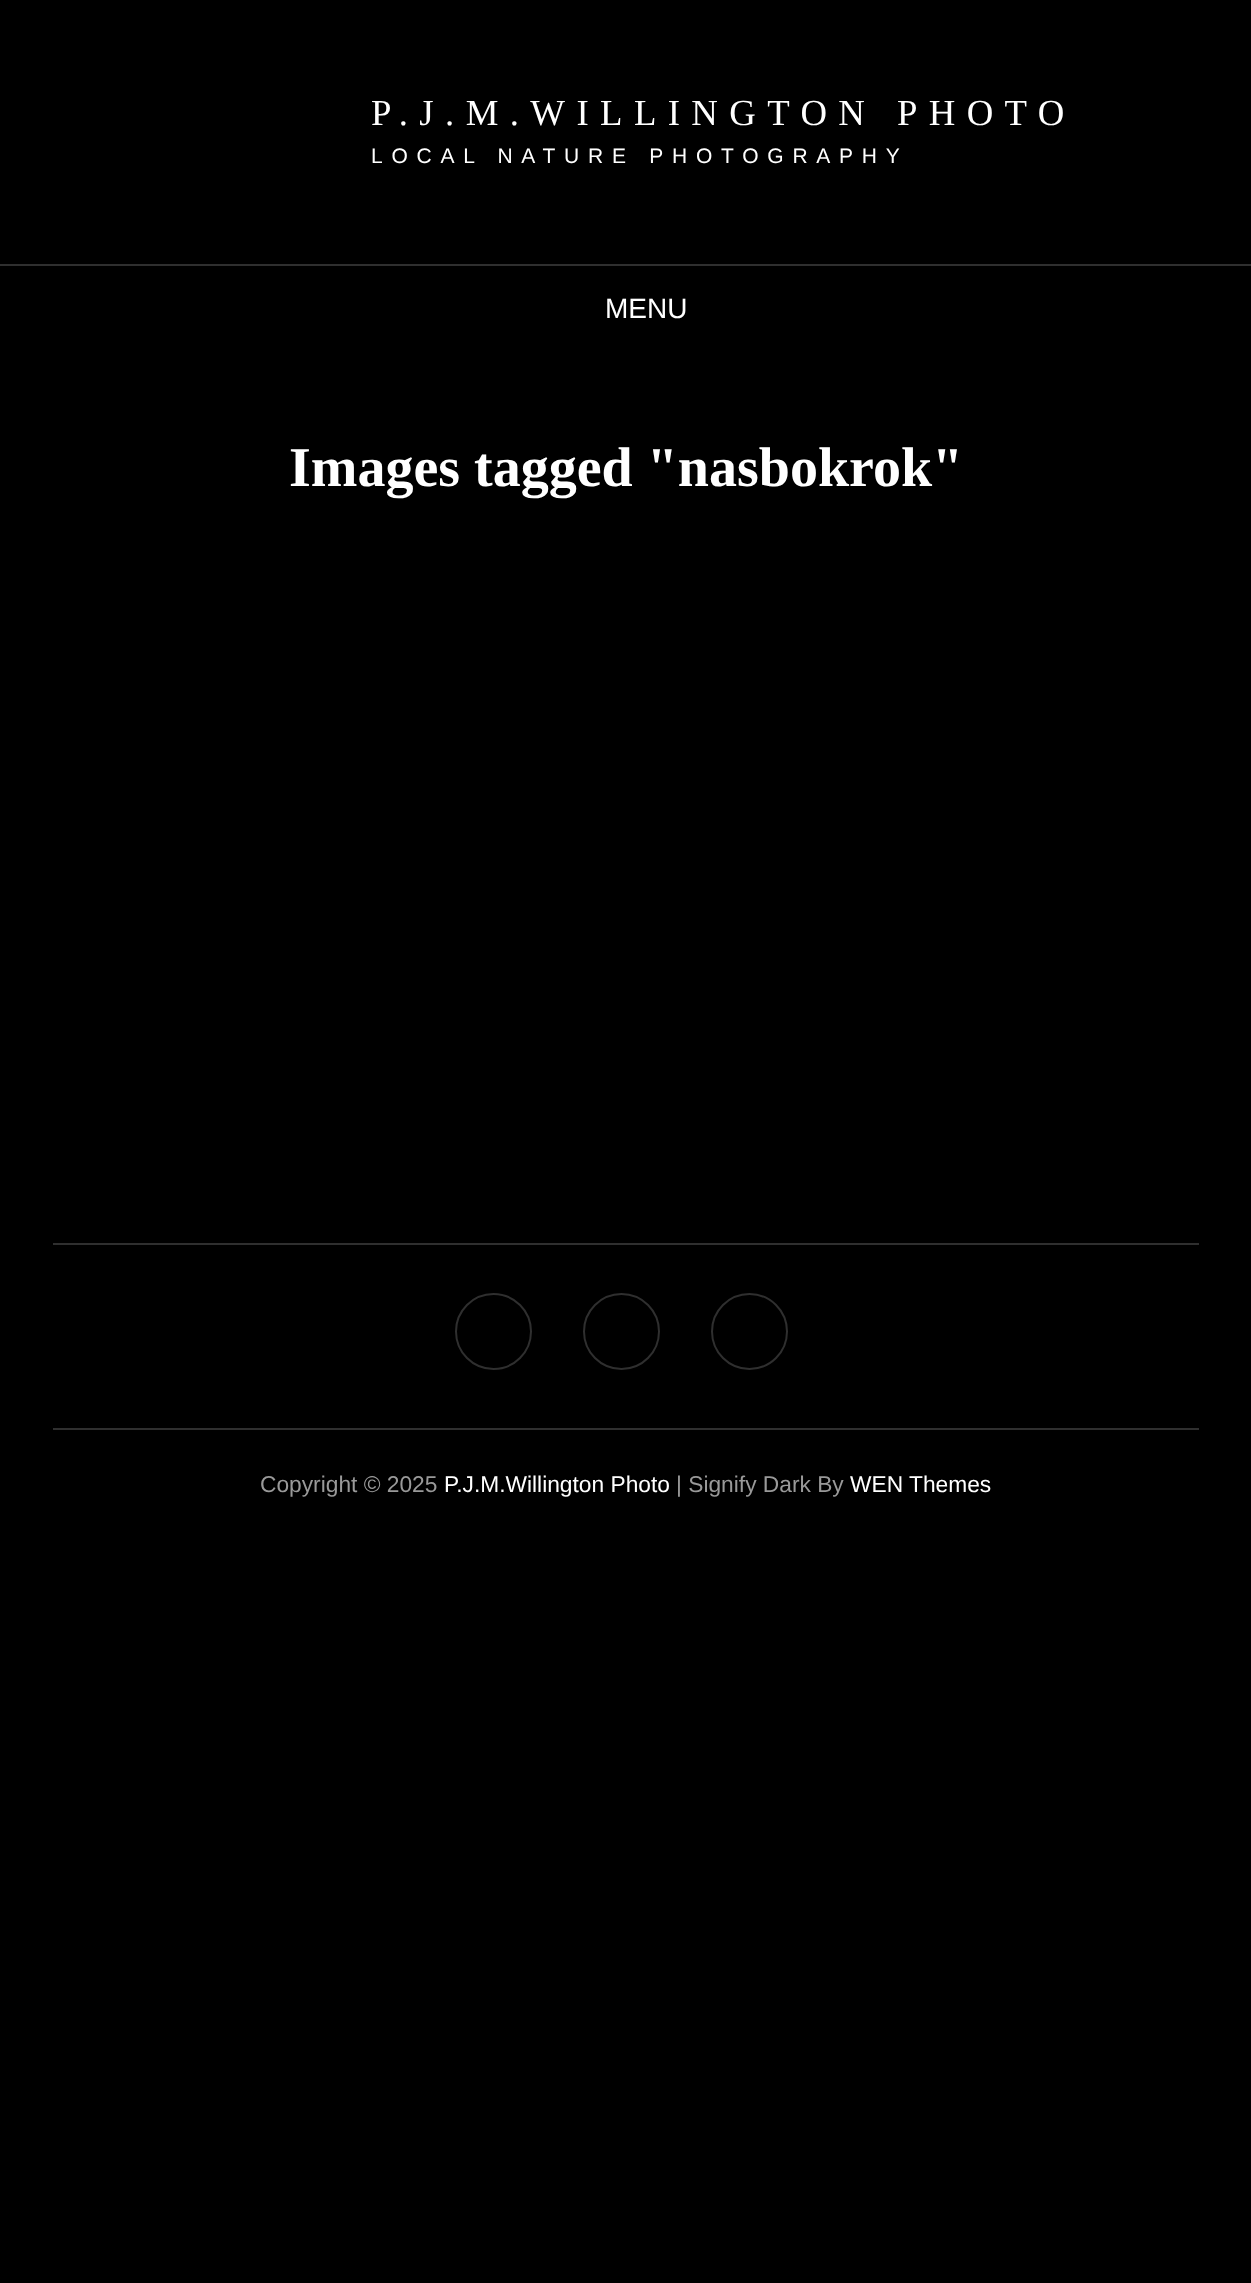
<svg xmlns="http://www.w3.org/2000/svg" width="1251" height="2283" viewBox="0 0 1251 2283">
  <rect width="100%" height="100%" fill="rgb(0,0,0)"/>
  <text x="371" y="125" font-family="Liberation Serif" font-size="36.75" letter-spacing="11.4" fill="rgb(255,255,255)">P.J.M.WILLINGTON PHOTO</text>
  <text x="371" y="163" font-family="Liberation Sans" font-size="21" letter-spacing="8.75" fill="rgb(255,255,255)">LOCAL NATURE PHOTOGRAPHY</text>
  <rect x="0" y="264" width="1251" height="2" fill="rgb(47,47,47)"/>
  <text x="605" y="318" font-family="Liberation Sans" font-size="28" fill="rgb(255,255,255)">MENU</text>
  <text x="289" y="486" font-family="Liberation Serif" font-size="56" font-weight="bold" fill="rgb(255,255,255)">Images tagged "nasbokrok"</text>
  <rect x="53" y="1243" width="1146" height="2" fill="rgb(47,47,47)"/>
  <rect x="53" y="1428" width="1146" height="2" fill="rgb(47,47,47)"/>
  <circle cx="493.5" cy="1331.5" r="37.5" fill="none" stroke="rgb(47,47,47)" stroke-width="2"/>
  <circle cx="621.5" cy="1331.5" r="37.5" fill="none" stroke="rgb(47,47,47)" stroke-width="2"/>
  <circle cx="749.5" cy="1331.5" r="37.5" fill="none" stroke="rgb(47,47,47)" stroke-width="2"/>
  <text x="260" y="1492" font-family="Liberation Sans" font-size="22.75" fill="rgb(153,153,153)">Copyright © 2025</text>
  <text x="444" y="1492" font-family="Liberation Sans" font-size="22.75" fill="rgb(255,255,255)">P.J.M.Willington Photo</text>
  <text x="676" y="1492" font-family="Liberation Sans" font-size="22.75" fill="rgb(153,153,153)">| Signify Dark By</text>
  <text x="850" y="1492" font-family="Liberation Sans" font-size="22.75" fill="rgb(255,255,255)">WEN Themes</text>
</svg>
